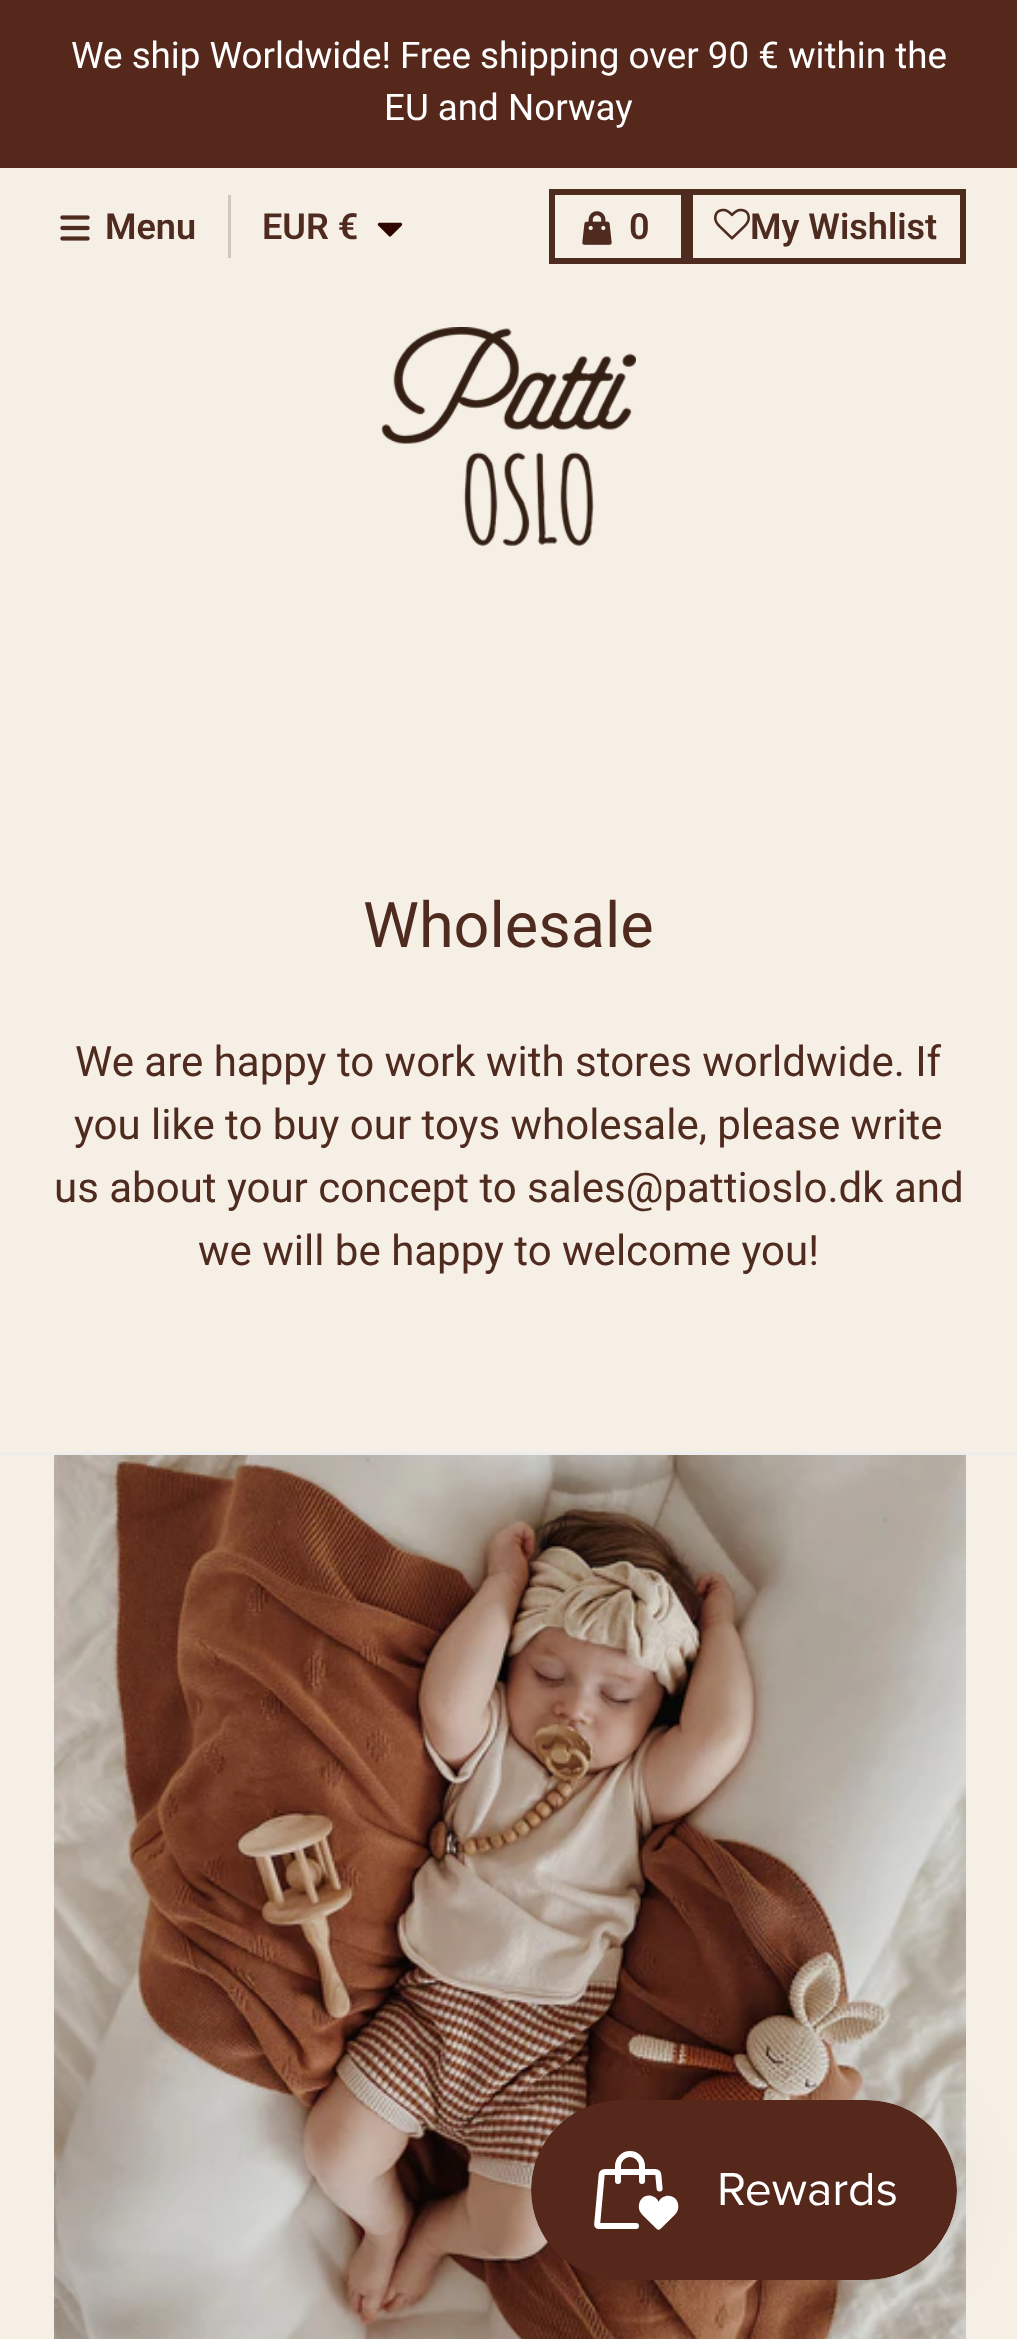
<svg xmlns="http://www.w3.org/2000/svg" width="1017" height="2339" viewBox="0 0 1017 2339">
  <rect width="100%" height="100%" fill="rgb(245,239,230)"/>
  <rect x="0" y="0" width="1017" height="168" fill="rgb(85,40,27)"/>
  <g font-family="Roboto" font-size="36.75" fill="rgb(255,255,255)">
    <text x="71" y="68">We ship Worldwide! Free shipping over 90 € within the</text>
    <text x="384" y="120">EU and Norway</text>
  </g>
  <image x="60" y="215" width="30" height="26" href="pic1.png"/>
  <text x="105" y="239" font-family="Roboto" font-size="36" font-weight="600" fill="rgb(79,42,30)">Menu</text>
  <rect x="228" y="195" width="3" height="63" fill="rgb(212,200,190)"/>
  <text x="262" y="239" font-family="Roboto" font-size="36" font-weight="600" fill="rgb(79,42,30)">EUR €</text>
  <image x="377" y="222" width="26" height="15" href="pic2.png"/>
  <rect x="552" y="192" width="132" height="69" fill="none" stroke="rgb(79,42,30)" stroke-width="6"/>
  <image x="582" y="211" width="30" height="34" href="pic3.png"/>
  <text x="629" y="239" font-family="Roboto" font-size="36" font-weight="600" fill="rgb(79,42,30)">0</text>
  <rect x="690" y="192" width="273" height="69" fill="none" stroke="rgb(79,42,30)" stroke-width="6"/>
  <image x="714" y="208" width="36" height="32" href="pic4.png"/>
  <text x="750" y="239" font-family="Roboto" font-size="36" font-weight="600" fill="rgb(79,42,30)">My Wishlist</text>
  <image x="381" y="327" width="255" height="219" href="pic5.png"/>
  <rect x="0" y="1452" width="1017" height="3" fill="rgb(237,237,237)"/>
  <text x="363" y="947" font-family="Roboto" font-size="63" fill="rgb(79,42,30)">Wholesale</text>
  <g font-family="Roboto" font-size="42" fill="rgb(79,42,30)">
    <text x="75" y="1076">We are happy to work with stores worldwide. If</text>
    <text x="74" y="1139">you like to buy our toys wholesale, please write</text>
    <text x="54" y="1202">us about your concept to sales@pattioslo.dk and</text>
    <text x="198" y="1265">we will be happy to welcome you!</text>
  </g>
  <image x="54" y="1455" width="912" height="884" href="pic6.png"/>
  <rect x="531" y="2100" width="426" height="180" rx="90" fill="rgba(0,0,0,0.05)" filter="blur(37.5px)"/>
  <image x="531" y="2100" width="426" height="180" href="pic7.png"/>
</svg>
